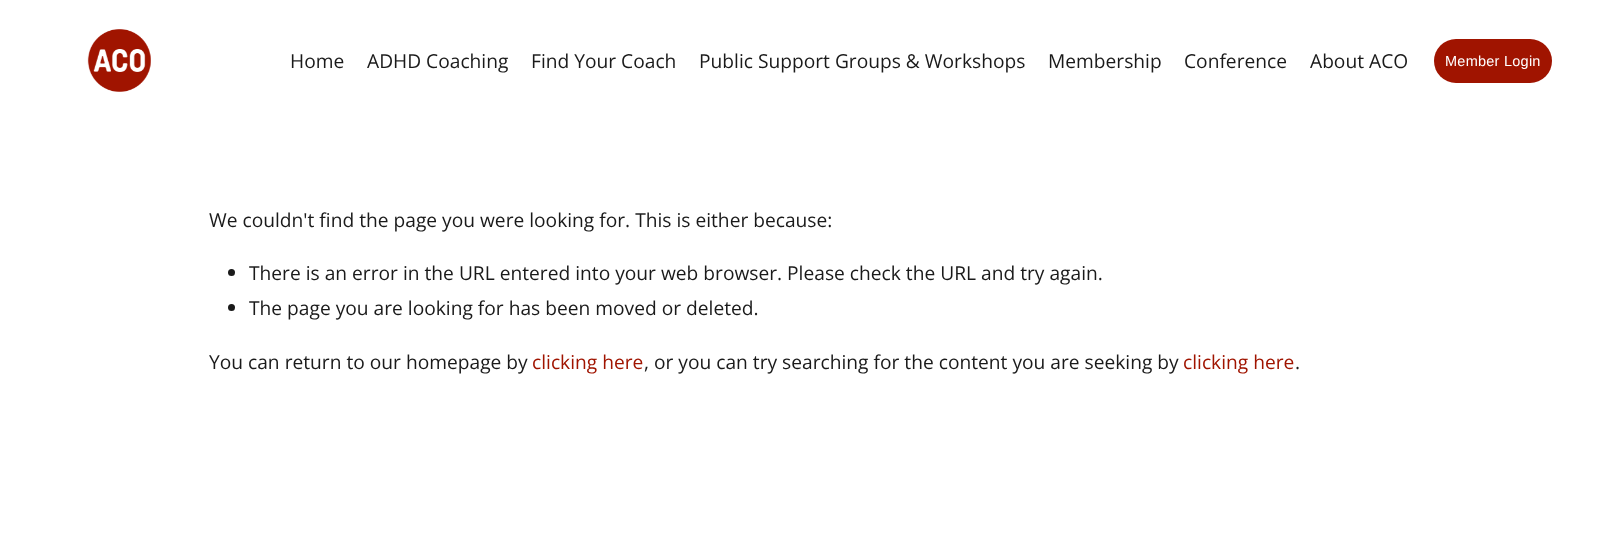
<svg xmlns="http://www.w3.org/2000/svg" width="1617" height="551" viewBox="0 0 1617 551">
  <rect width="100%" height="100%" fill="rgb(255,255,255)"/>
  <image x="87" y="29" width="64" height="63" href="pic1.png"/>
  <g font-family="Open Sans" font-size="19.2" fill="rgb(26,26,26)">
    <text x="290" y="68">Home</text>
    <text x="367" y="68">ADHD Coaching</text>
    <text x="531" y="68">Find Your Coach</text>
    <text x="699" y="68">Public Support Groups &amp; Workshops</text>
    <text x="1048" y="68">Membership</text>
    <text x="1184" y="68">Conference</text>
    <text x="1310" y="68">About ACO</text>
  </g>
  <rect x="1434" y="39" width="118" height="44" rx="22" fill="rgb(160,20,0)"/>
  <text x="1445" y="66" font-family="Liberation Sans" font-size="14.5" letter-spacing="0.25" fill="rgb(255,255,255)">Member Login</text>
  <text x="209" y="227" font-family="Open Sans" font-size="19.2" fill="rgb(26,26,26)">We couldn't find the page you were looking for. This is either because:</text>
  <circle cx="231.5" cy="272.5" r="3.5" fill="rgb(26,26,26)"/>
  <text x="249" y="280" font-family="Open Sans" font-size="19.2" fill="rgb(26,26,26)">There is an error in the URL entered into your web browser. Please check the URL and try again.</text>
  <circle cx="231.5" cy="307.5" r="3.5" fill="rgb(26,26,26)"/>
  <g font-family="Open Sans" font-size="19.2" fill="rgb(26,26,26)">
    <text x="249" y="315">The page you are looking for has been moved or deleted.</text>
    <text x="209" y="369">You can return to our homepage by</text>
  </g>
  <text x="532" y="369" font-family="Open Sans" font-size="19.2" fill="rgb(160,20,0)">clicking here</text>
  <text x="644" y="369" font-family="Open Sans" font-size="19.2" fill="rgb(26,26,26)">, or you can try searching for the content you are seeking by</text>
  <text x="1183" y="369" font-family="Open Sans" font-size="19.2" fill="rgb(160,20,0)">clicking here</text>
  <text x="1295" y="369" font-family="Open Sans" font-size="19.2" fill="rgb(26,26,26)">.</text>
</svg>
